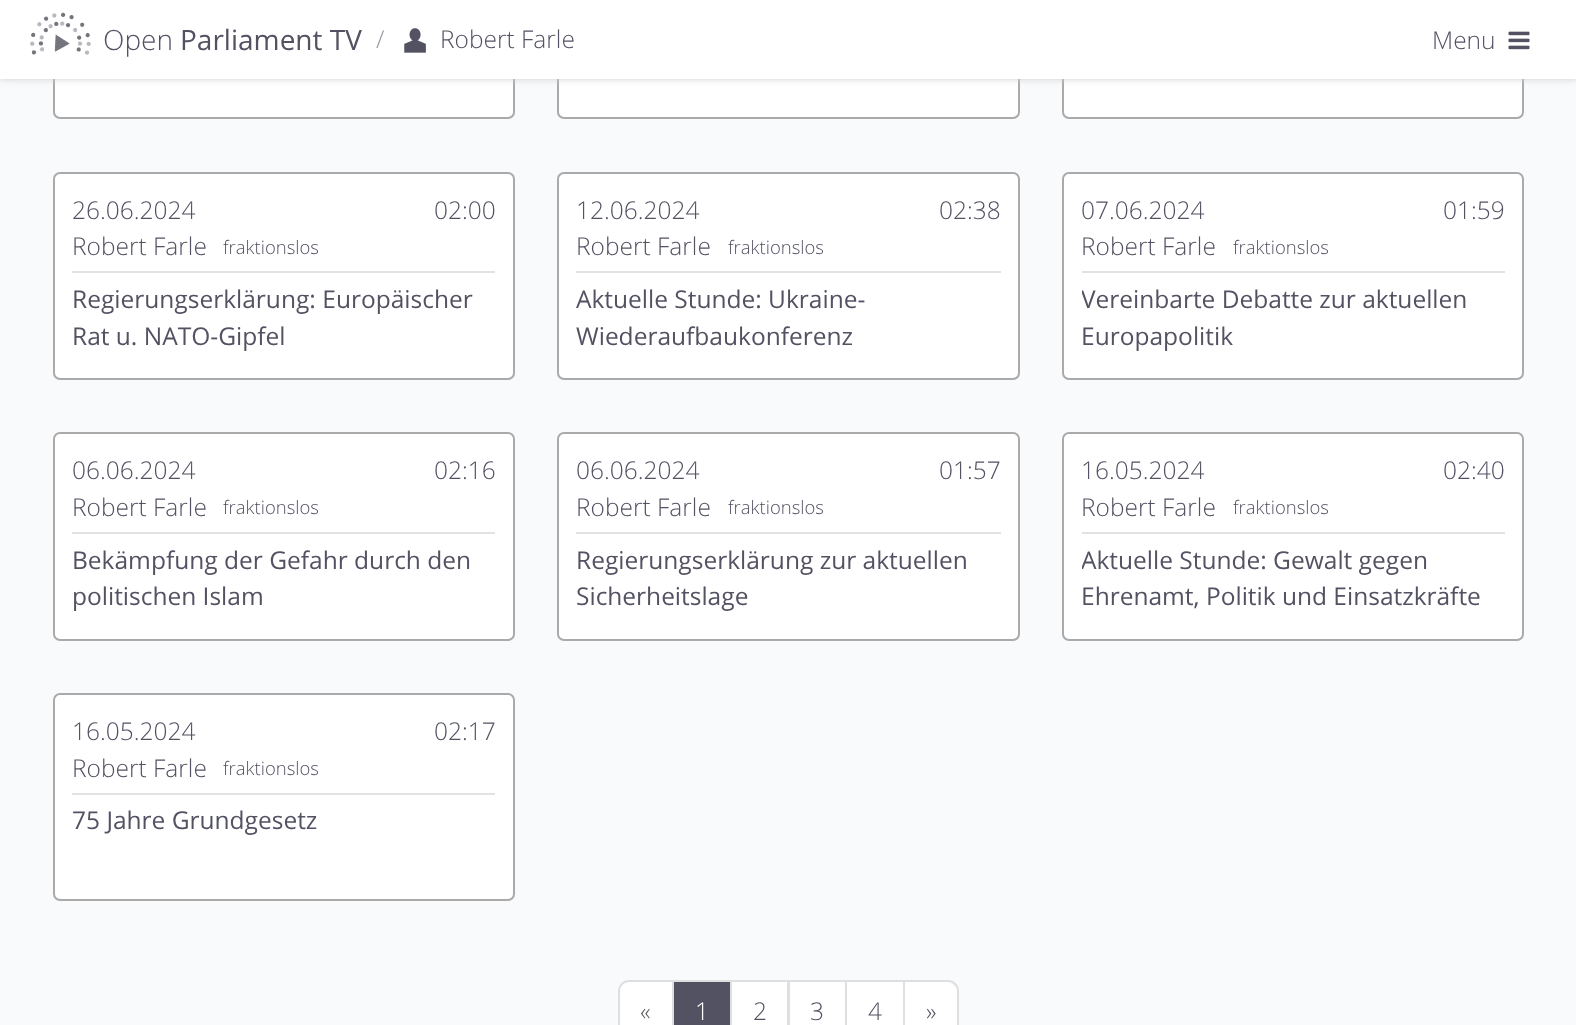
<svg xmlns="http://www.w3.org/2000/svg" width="1576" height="1025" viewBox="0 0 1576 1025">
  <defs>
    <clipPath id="clip1"><rect x="1082" y="280" width="423" height="74"/></clipPath>
    <clipPath id="clip2"><rect x="1082" y="541" width="423" height="73"/></clipPath>
  </defs>
  <rect width="100%" height="100%" fill="rgb(249,250,251)"/>
  <rect x="54" y="-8" width="460" height="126" rx="6" fill="rgb(255,255,255)" stroke="rgb(170,170,170)" stroke-width="2"/>
  <rect x="558" y="-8" width="461" height="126" rx="6" fill="rgb(255,255,255)" stroke="rgb(170,170,170)" stroke-width="2"/>
  <rect x="1063" y="-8" width="460" height="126" rx="6" fill="rgb(255,255,255)" stroke="rgb(170,170,170)" stroke-width="2"/>
  <rect x="0" y="0" width="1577" height="79" fill="rgb(207,207,207)" filter="blur(3.5px)"/>
  <rect x="0" y="0" width="1576" height="79" fill="rgb(255,255,255)"/>
  <image x="30" y="12" width="61" height="43" href="pic1.png"/>
  <text x="103" y="50" font-family="Open Sans" font-size="28" font-weight="300" fill="rgb(83,82,99)">Open</text>
  <text x="180" y="50" font-family="Open Sans" font-size="28" fill="rgb(83,82,99)">Parliament TV</text>
  <text x="376" y="48" font-family="Open Sans" font-size="24.5" font-weight="300" fill="rgb(152,151,161)">/</text>
  <image x="404" y="28" width="22" height="25" href="pic2.png"/>
  <g font-family="Open Sans" font-size="24.5" font-weight="300" fill="rgb(83,82,99)">
    <text x="440" y="48">Robert Farle</text>
    <text x="1432" y="49">Menu</text>
  </g>
  <image x="1508" y="31" width="22" height="19" href="pic3.png"/>
  <rect x="54" y="173" width="460" height="206" rx="6" fill="rgb(255,255,255)" stroke="rgb(170,170,170)" stroke-width="2"/>
  <g font-family="Open Sans" font-size="24.5" font-weight="300" fill="rgb(83,82,99)">
    <text x="72" y="219">26.06.2024</text>
    <text x="434" y="219">02:00</text>
    <text x="72" y="255">Robert Farle</text>
  </g>
  <text x="223" y="254" font-family="Open Sans" font-size="18.5" font-weight="300" fill="rgb(83,82,99)">fraktionslos</text>
  <rect x="72" y="271" width="423" height="2" fill="rgb(226,226,226)"/>
  <g font-family="Open Sans" font-size="24.5" fill="rgb(83,82,99)">
    <text>
      <tspan x="72" y="308">Regierungserklärung: Europäischer</tspan>
      <tspan x="72" y="345">Rat u. NATO-Gipfel</tspan>
    </text>
  </g>
  <rect x="558" y="173" width="461" height="206" rx="6" fill="rgb(255,255,255)" stroke="rgb(170,170,170)" stroke-width="2"/>
  <g font-family="Open Sans" font-size="24.5" font-weight="300" fill="rgb(83,82,99)">
    <text x="576" y="219">12.06.2024</text>
    <text x="939" y="219">02:38</text>
    <text x="576" y="255">Robert Farle</text>
  </g>
  <text x="728" y="254" font-family="Open Sans" font-size="18.5" font-weight="300" fill="rgb(83,82,99)">fraktionslos</text>
  <rect x="576" y="271" width="425" height="2" fill="rgb(226,226,226)"/>
  <g font-family="Open Sans" font-size="24.5" fill="rgb(83,82,99)">
    <text>
      <tspan x="576" y="308">Aktuelle Stunde: Ukraine-</tspan>
      <tspan x="576" y="345">Wiederaufbaukonferenz</tspan>
    </text>
  </g>
  <rect x="1063" y="173" width="460" height="206" rx="6" fill="rgb(255,255,255)" stroke="rgb(170,170,170)" stroke-width="2"/>
  <g font-family="Open Sans" font-size="24.5" font-weight="300" fill="rgb(83,82,99)">
    <text x="1081" y="219">07.06.2024</text>
    <text x="1443" y="219">01:59</text>
    <text x="1081" y="255">Robert Farle</text>
  </g>
  <text x="1233" y="254" font-family="Open Sans" font-size="18.5" font-weight="300" fill="rgb(83,82,99)">fraktionslos</text>
  <rect x="1082" y="271" width="423" height="2" fill="rgb(226,226,226)"/>
  <g clip-path="url(#clip1)">
    <text x="1081" y="308" font-family="Open Sans" font-size="24.5" fill="rgb(83,82,99)">Vereinbarte Debatte zur aktuellen</text>
  </g>
  <text x="1081" y="345" font-family="Open Sans" font-size="24.5" fill="rgb(83,82,99)">Europapolitik</text>
  <rect x="54" y="433" width="460" height="207" rx="6" fill="rgb(255,255,255)" stroke="rgb(170,170,170)" stroke-width="2"/>
  <g font-family="Open Sans" font-size="24.5" font-weight="300" fill="rgb(83,82,99)">
    <text x="72" y="479">06.06.2024</text>
    <text x="434" y="479">02:16</text>
    <text x="72" y="516">Robert Farle</text>
  </g>
  <text x="223" y="514" font-family="Open Sans" font-size="18.5" font-weight="300" fill="rgb(83,82,99)">fraktionslos</text>
  <rect x="72" y="532" width="423" height="2" fill="rgb(226,226,226)"/>
  <g font-family="Open Sans" font-size="24.5" fill="rgb(83,82,99)">
    <text>
      <tspan x="72" y="569">Bekämpfung der Gefahr durch den</tspan>
      <tspan x="72" y="605">politischen Islam</tspan>
    </text>
  </g>
  <rect x="558" y="433" width="461" height="207" rx="6" fill="rgb(255,255,255)" stroke="rgb(170,170,170)" stroke-width="2"/>
  <g font-family="Open Sans" font-size="24.5" font-weight="300" fill="rgb(83,82,99)">
    <text x="576" y="479">06.06.2024</text>
    <text x="939" y="479">01:57</text>
    <text x="576" y="516">Robert Farle</text>
  </g>
  <text x="728" y="514" font-family="Open Sans" font-size="18.5" font-weight="300" fill="rgb(83,82,99)">fraktionslos</text>
  <rect x="576" y="532" width="425" height="2" fill="rgb(226,226,226)"/>
  <g font-family="Open Sans" font-size="24.5" fill="rgb(83,82,99)">
    <text>
      <tspan x="576" y="569">Regierungserklärung zur aktuellen</tspan>
      <tspan x="576" y="605">Sicherheitslage</tspan>
    </text>
  </g>
  <rect x="1063" y="433" width="460" height="207" rx="6" fill="rgb(255,255,255)" stroke="rgb(170,170,170)" stroke-width="2"/>
  <g font-family="Open Sans" font-size="24.5" font-weight="300" fill="rgb(83,82,99)">
    <text x="1081" y="479">16.05.2024</text>
    <text x="1443" y="479">02:40</text>
    <text x="1081" y="516">Robert Farle</text>
  </g>
  <text x="1233" y="514" font-family="Open Sans" font-size="18.5" font-weight="300" fill="rgb(83,82,99)">fraktionslos</text>
  <rect x="1082" y="532" width="423" height="2" fill="rgb(226,226,226)"/>
  <g clip-path="url(#clip2)">
    <text x="1081" y="569" font-family="Open Sans" font-size="24.5" fill="rgb(83,82,99)">Aktuelle Stunde: Gewalt gegen</text>
  </g>
  <text x="1081" y="605" font-family="Open Sans" font-size="24.5" fill="rgb(83,82,99)">Ehrenamt, Politik und Einsatzkräfte</text>
  <rect x="54" y="694" width="460" height="206" rx="6" fill="rgb(255,255,255)" stroke="rgb(170,170,170)" stroke-width="2"/>
  <g font-family="Open Sans" font-size="24.5" font-weight="300" fill="rgb(83,82,99)">
    <text x="72" y="740">16.05.2024</text>
    <text x="434" y="740">02:17</text>
    <text x="72" y="777">Robert Farle</text>
  </g>
  <text x="223" y="775" font-family="Open Sans" font-size="18.5" font-weight="300" fill="rgb(83,82,99)">fraktionslos</text>
  <rect x="72" y="793" width="423" height="2" fill="rgb(226,226,226)"/>
  <text x="72" y="829" font-family="Open Sans" font-size="24.5" fill="rgb(83,82,99)">75 Jahre Grundgesetz</text>
  <path d="M629 981H673V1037H629C623.5 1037 619 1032.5 619 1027V991C619 985.5 623.5 981 629 981Z" fill="rgb(255,255,255)" stroke="rgb(223,223,223)" stroke-width="2"/>
  <text x="640" y="1020" font-family="Open Sans" font-size="24.5" font-weight="300" fill="rgb(89,92,95)">«</text>
  <rect x="731" y="981" width="57" height="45" fill="rgb(255,255,255)" stroke="rgb(223,223,223)" stroke-width="2"/>
  <rect x="673" y="981" width="58" height="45" fill="rgb(83,82,99)" stroke="rgb(223,223,223)" stroke-width="2"/>
  <text x="695" y="1020" font-family="Open Sans" font-size="24.5" font-weight="300" fill="rgb(255,255,255)">1</text>
  <text x="753" y="1020" font-family="Open Sans" font-size="24.5" font-weight="300" fill="rgb(83,82,99)">2</text>
  <rect x="789" y="981" width="57" height="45" fill="rgb(255,255,255)" stroke="rgb(223,223,223)" stroke-width="2"/>
  <text x="810" y="1020" font-family="Open Sans" font-size="24.5" font-weight="300" fill="rgb(83,82,99)">3</text>
  <rect x="846" y="981" width="58" height="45" fill="rgb(255,255,255)" stroke="rgb(223,223,223)" stroke-width="2"/>
  <text x="868" y="1020" font-family="Open Sans" font-size="24.5" font-weight="300" fill="rgb(83,82,99)">4</text>
  <path d="M904 981H948C953.5 981 958 985.5 958 991V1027C958 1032.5 953.5 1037 948 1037H904Z" fill="rgb(255,255,255)" stroke="rgb(223,223,223)" stroke-width="2"/>
  <text x="926" y="1020" font-family="Open Sans" font-size="24.5" font-weight="300" fill="rgb(83,82,99)">»</text>
</svg>
